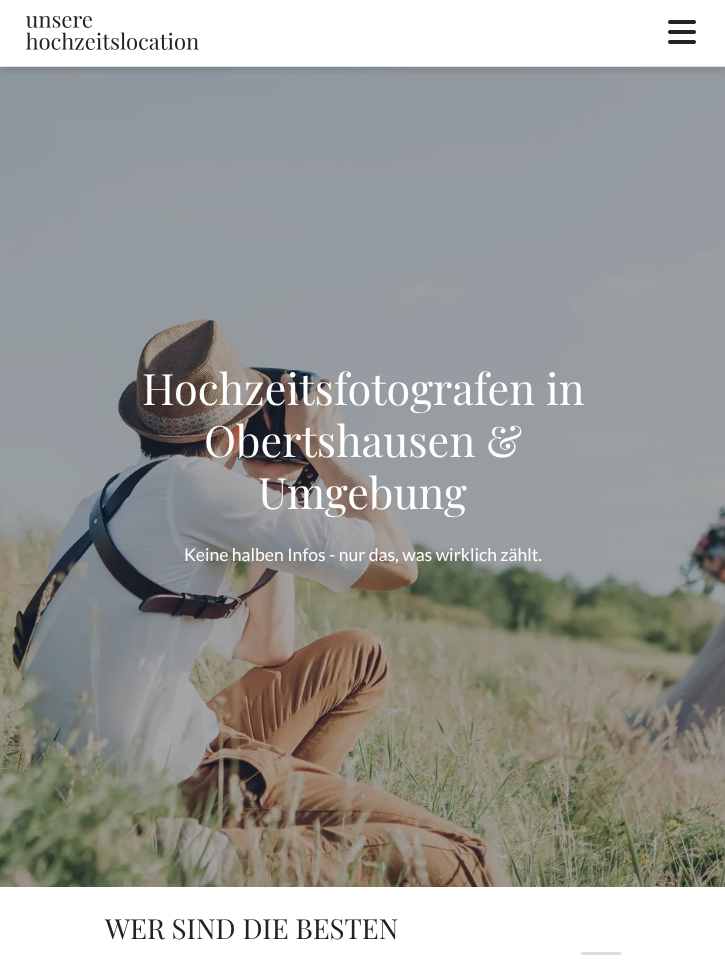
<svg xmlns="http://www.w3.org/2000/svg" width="725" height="965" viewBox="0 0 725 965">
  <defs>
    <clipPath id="clip1"><rect x="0" y="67" width="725" height="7"/></clipPath>
  </defs>
  <rect width="100%" height="100%" fill="rgb(255,255,255)"/>
  <image x="0" y="67" width="725" height="820" href="pic3.png"/>
  <g clip-path="url(#clip1)">
    <rect x="0" y="4" width="725" height="67" fill="rgba(0,0,0,0.1)" filter="blur(3px)"/>
  </g>
  <rect x="0" y="66" width="725" height="1" fill="rgb(222,226,230)"/>
  <image x="25" y="16" width="174" height="34" href="pic1.png"/>
  <image x="668" y="20" width="28" height="24" href="pic2.png"/>
  <g font-family="Playfair Display" font-size="43.25" fill="rgb(255,255,255)">
    <text x="142" y="405">Hochzeitsfotografen in</text>
    <text x="204" y="457">Obertshausen &amp;</text>
    <text x="258" y="509">Umgebung</text>
  </g>
  <text x="184" y="561" font-family="Lato" font-size="17.6" fill="rgb(255,255,255)">Keine halben Infos - nur das, was wirklich zählt.</text>
  <text x="105" y="939" font-family="Playfair Display" font-size="27.75" fill="rgb(36,35,32)">WER SIND DIE BESTEN</text>
  <rect x="581" y="952" width="40" height="3" fill="rgb(229,220,212)"/>
</svg>
